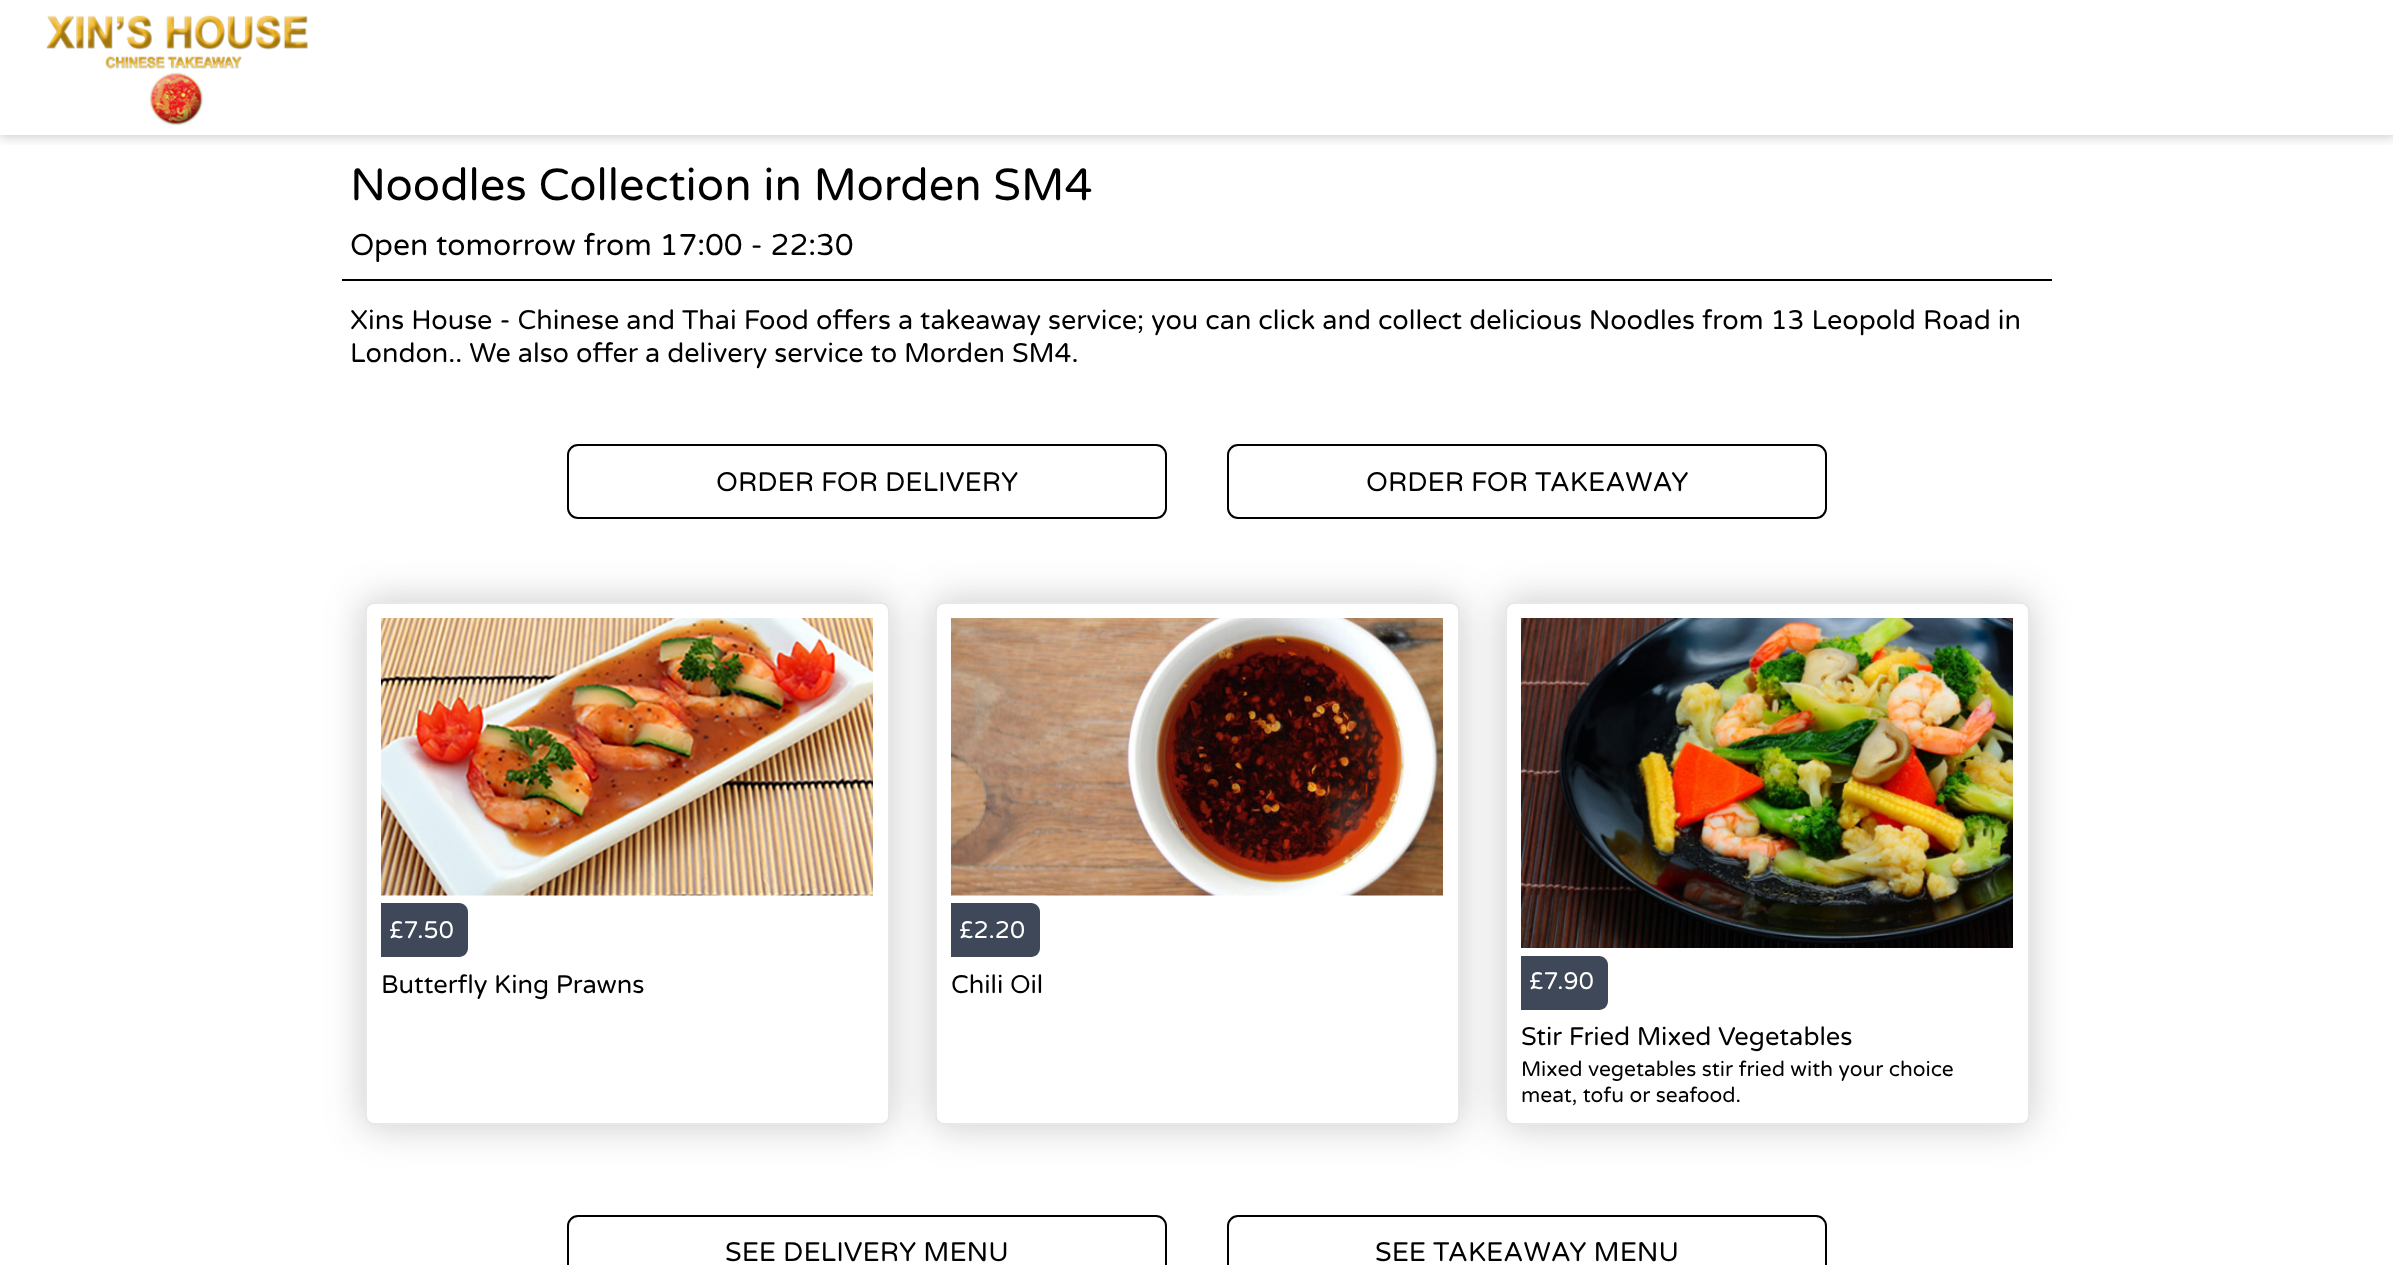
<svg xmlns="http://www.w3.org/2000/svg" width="2393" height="1265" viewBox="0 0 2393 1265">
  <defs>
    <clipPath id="clip1"><rect x="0" y="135" width="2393" height="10"/></clipPath>
  </defs>
  <rect width="100%" height="100%" fill="rgb(255,255,255)"/>
  <g clip-path="url(#clip1)">
    <rect x="-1" y="-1" width="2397" height="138" fill="rgba(53,53,53,0.25)" filter="blur(6px)"/>
  </g>
  <image x="46" y="15" width="262" height="111" href="pic1.png"/>
  <text x="350" y="200" font-family="Varela Round" font-size="45" fill="rgb(0,0,0)">Noodles Collection in Morden SM4</text>
  <rect x="342" y="279" width="1710" height="2" fill="rgb(0,0,0)"/>
  <text x="350" y="255" font-family="Varela Round" font-size="30" fill="rgb(0,0,0)">Open tomorrow from 17:00 - 22:30</text>
  <g font-family="Varela Round" font-size="27" fill="rgb(0,0,0)">
    <text>
      <tspan x="350" y="329">Xins House - Chinese and Thai Food offers a takeaway service; you can click and collect delicious Noodles from 13 Leopold Road in</tspan>
      <tspan x="350" y="362">London.. We also offer a delivery service to Morden SM4.</tspan>
    </text>
  </g>
  <rect x="568" y="445" width="598" height="73" rx="10" fill="none" stroke="rgb(0,0,0)" stroke-width="2"/>
  <text x="716" y="491" font-family="Varela Round" font-size="27" fill="rgb(0,0,0)">ORDER FOR DELIVERY</text>
  <rect x="1228" y="445" width="598" height="73" rx="10" fill="none" stroke="rgb(0,0,0)" stroke-width="2"/>
  <text x="1366" y="491" font-family="Varela Round" font-size="27" fill="rgb(0,0,0)">ORDER FOR TAKEAWAY</text>
  <rect x="363" y="600" width="528" height="527" rx="11" fill="rgba(53,53,53,0.25)" filter="blur(19px)"/>
  <rect x="366" y="603" width="523" height="521" rx="8" fill="rgb(255,255,255)" stroke="rgb(232,232,232)" stroke-width="2"/>
  <image x="381" y="618" width="492" height="278" href="pic2.png"/>
  <path d="M381 903H459C464 903 468 907 468 912V948C468 953 464 957 459 957H381Z" fill="rgb(63,72,88)"/>
  <text x="389" y="938" font-family="Varela Round" font-size="24" fill="rgb(255,255,255)">£7.50</text>
  <text x="381" y="993" font-family="Varela Round" font-size="25.5" fill="rgb(0,0,0)">Butterfly King Prawns</text>
  <rect x="933" y="600" width="528" height="527" rx="11" fill="rgba(53,53,53,0.25)" filter="blur(19px)"/>
  <rect x="936" y="603" width="523" height="521" rx="8" fill="rgb(255,255,255)" stroke="rgb(232,232,232)" stroke-width="2"/>
  <image x="951" y="618" width="492" height="278" href="pic3.png"/>
  <path d="M951 903H1031C1036 903 1040 907 1040 912V948C1040 953 1036 957 1031 957H951Z" fill="rgb(63,72,88)"/>
  <text x="959" y="938" font-family="Varela Round" font-size="24" fill="rgb(255,255,255)">£2.20</text>
  <text x="951" y="993" font-family="Varela Round" font-size="25.5" fill="rgb(0,0,0)">Chili Oil</text>
  <rect x="1503" y="600" width="528" height="527" rx="11" fill="rgba(53,53,53,0.25)" filter="blur(19px)"/>
  <rect x="1506" y="603" width="523" height="521" rx="8" fill="rgb(255,255,255)" stroke="rgb(232,232,232)" stroke-width="2"/>
  <image x="1521" y="618" width="492" height="330" href="pic4.png"/>
  <path d="M1521 956H1599C1604 956 1608 960 1608 965V1001C1608 1006 1604 1010 1599 1010H1521Z" fill="rgb(63,72,88)"/>
  <text x="1529" y="989" font-family="Varela Round" font-size="24" fill="rgb(255,255,255)">£7.90</text>
  <text x="1521" y="1045" font-family="Varela Round" font-size="25.5" fill="rgb(0,0,0)">Stir Fried Mixed Vegetables</text>
  <g font-family="Varela Round" font-size="21" fill="rgb(0,0,0)">
    <text>
      <tspan x="1521" y="1076">Mixed vegetables stir fried with your choice</tspan>
      <tspan x="1521" y="1102">meat, tofu or seafood.</tspan>
    </text>
  </g>
  <rect x="568" y="1216" width="598" height="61" rx="10" fill="none" stroke="rgb(0,0,0)" stroke-width="2"/>
  <text x="725" y="1261" font-family="Varela Round" font-size="27" fill="rgb(0,0,0)">SEE DELIVERY MENU</text>
  <rect x="1228" y="1216" width="598" height="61" rx="10" fill="none" stroke="rgb(0,0,0)" stroke-width="2"/>
  <text x="1375" y="1261" font-family="Varela Round" font-size="27" fill="rgb(0,0,0)">SEE TAKEAWAY MENU</text>
</svg>
